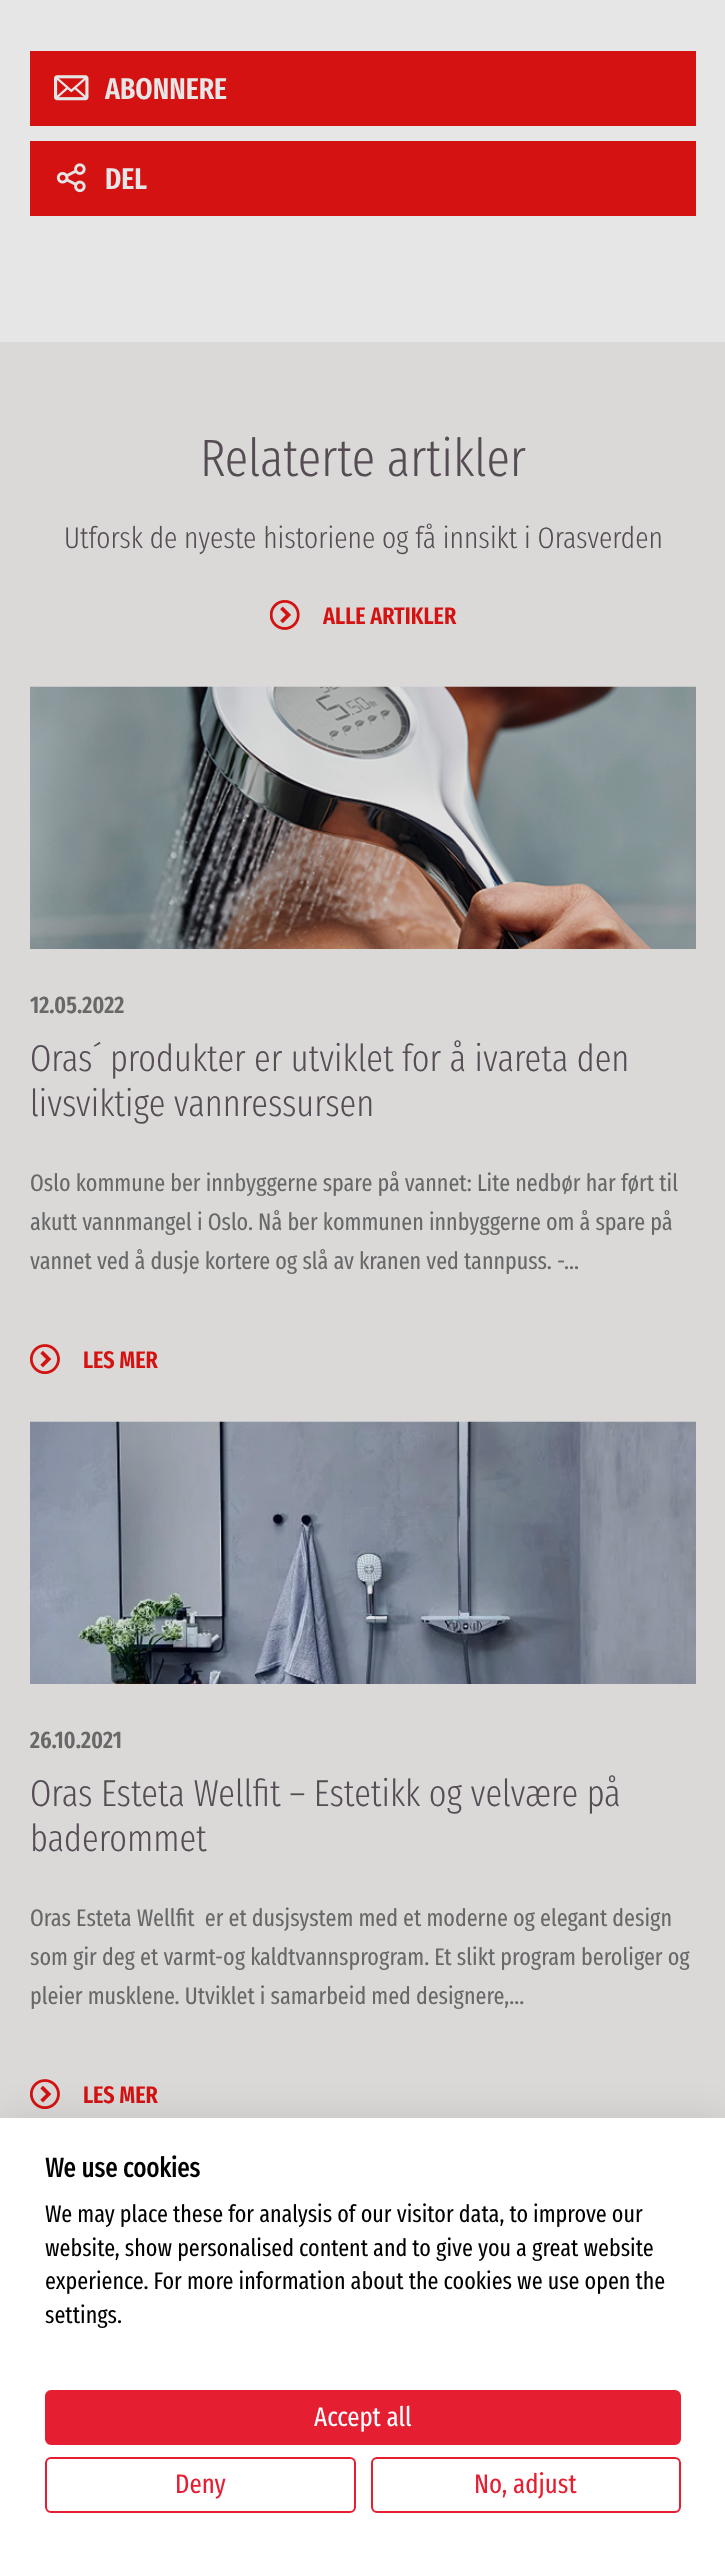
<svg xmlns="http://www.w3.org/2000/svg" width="725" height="2553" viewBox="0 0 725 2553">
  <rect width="100%" height="100%" fill="rgb(230,230,230)"/>
  <rect x="30" y="51" width="666" height="75" fill="rgb(212,18,18)"/>
  <image x="54" y="75" width="35" height="26" href="pic1.png"/>
  <text x="105" y="99" font-family="Fira Sans Extra Condensed" font-size="30" font-weight="600" fill="rgb(230,230,230)">ABONNERE</text>
  <rect x="30" y="141" width="666" height="75" fill="rgb(212,18,18)"/>
  <image x="56" y="163" width="30" height="30" href="pic2.png"/>
  <text x="105" y="189" font-family="Fira Sans Extra Condensed" font-size="30" font-weight="600" fill="rgb(230,230,230)">DEL</text>
  <rect x="0" y="342" width="725" height="1776" fill="rgb(218,217,216)"/>
  <text x="200" y="476" font-family="Fira Sans Extra Condensed" font-size="52.5" font-weight="300" fill="rgb(86,77,84)">Relaterte artikler</text>
  <text x="64" y="548" font-family="Fira Sans Extra Condensed" font-size="30" font-weight="300" fill="rgb(86,77,84)">Utforsk de nyeste historiene og få innsikt i Orasverden</text>
  <image x="269" y="600" width="31" height="30" href="pic3.png"/>
  <text x="323" y="624" font-family="Fira Sans Extra Condensed" font-size="24" font-weight="600" fill="rgb(212,18,18)">ALLE ARTIKLER</text>
  <image x="30" y="686" width="666" height="263" href="pic4.png"/>
  <text x="30" y="1013" font-family="Fira Sans Extra Condensed" font-size="24" font-weight="600" fill="rgb(104,104,104)">12.05.2022</text>
  <g font-family="Fira Sans Extra Condensed" font-size="37.5" font-weight="300" fill="rgb(86,77,84)">
    <text>
      <tspan x="30" y="1071">Oras´ produkter er utviklet for å ivareta den</tspan>
      <tspan x="30" y="1116">livsviktige vannressursen</tspan>
    </text>
  </g>
  <g font-family="Fira Sans Extra Condensed" font-size="24" fill="rgb(104,104,104)">
    <text>
      <tspan x="30" y="1191">Oslo kommune ber innbyggerne spare på vannet: Lite nedbør har ført til</tspan>
      <tspan x="30" y="1230">akutt vannmangel i Oslo. Nå ber kommunen innbyggerne om å spare på</tspan>
      <tspan x="30" y="1269">vannet ved å dusje kortere og slå av kranen ved tannpuss. -...</tspan>
    </text>
  </g>
  <image x="30" y="1344" width="30" height="30" href="pic5.png"/>
  <text x="83" y="1368" font-family="Fira Sans Extra Condensed" font-size="24" font-weight="600" fill="rgb(212,18,18)">LES MER</text>
  <image x="30" y="1421" width="666" height="263" href="pic6.png"/>
  <text x="30" y="1748" font-family="Fira Sans Extra Condensed" font-size="24" font-weight="600" fill="rgb(104,104,104)">26.10.2021</text>
  <g font-family="Fira Sans Extra Condensed" font-size="37.5" font-weight="300" fill="rgb(86,77,84)">
    <text>
      <tspan x="30" y="1806">Oras Esteta Wellfit – Estetikk og velvære på</tspan>
      <tspan x="30" y="1851">baderommet</tspan>
    </text>
  </g>
  <g font-family="Fira Sans Extra Condensed" font-size="24" fill="rgb(104,104,104)">
    <text xml:space="preserve"><tspan x="30" y="1926">Oras Esteta Wellfit  er et dusjsystem med et moderne og elegant design</tspan><tspan x="30" y="1965">som gir deg et varmt-og kaldtvannsprogram. Et slikt program beroliger og</tspan><tspan x="30" y="2004">pleier musklene. Utviklet i samarbeid med designere,...</tspan></text>
  </g>
  <image x="30" y="2079" width="30" height="30" href="pic5.png"/>
  <text x="83" y="2103" font-family="Fira Sans Extra Condensed" font-size="24" font-weight="600" fill="rgb(212,18,18)">LES MER</text>
  <rect x="0" y="2118" width="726" height="435" fill="rgba(0,0,0,0.1)" filter="blur(18px)"/>
  <rect x="0" y="2118" width="725" height="435" fill="rgb(255,255,255)"/>
  <text x="45" y="2177" font-family="Fira Sans Extra Condensed" font-size="27" font-weight="bold" fill="rgb(0,0,0)">We use cookies</text>
  <g font-family="Fira Sans Extra Condensed" font-size="24" fill="rgb(0,0,0)">
    <text>
      <tspan x="45" y="2222">We may place these for analysis of our visitor data, to improve our</tspan>
      <tspan x="45" y="2256">website, show personalised content and to give you a great website</tspan>
      <tspan x="45" y="2289">experience. For more information about the cookies we use open the</tspan>
      <tspan x="45" y="2323">settings.</tspan>
    </text>
  </g>
  <rect x="46" y="2391" width="634" height="53" rx="5" fill="rgb(230,30,50)" stroke="rgb(230,30,50)" stroke-width="2"/>
  <text x="314" y="2426" font-family="Fira Sans Extra Condensed" font-size="27" fill="rgb(255,255,255)">Accept all</text>
  <rect x="46" y="2458" width="309" height="54" rx="5" fill="none" stroke="rgb(230,30,50)" stroke-width="2"/>
  <text x="175" y="2493" font-family="Fira Sans Extra Condensed" font-size="27" fill="rgb(230,30,50)">Deny</text>
  <rect x="372" y="2458" width="308" height="54" rx="5" fill="none" stroke="rgb(230,30,50)" stroke-width="2"/>
  <text x="474" y="2493" font-family="Fira Sans Extra Condensed" font-size="27" fill="rgb(230,30,50)">No, adjust</text>
</svg>
